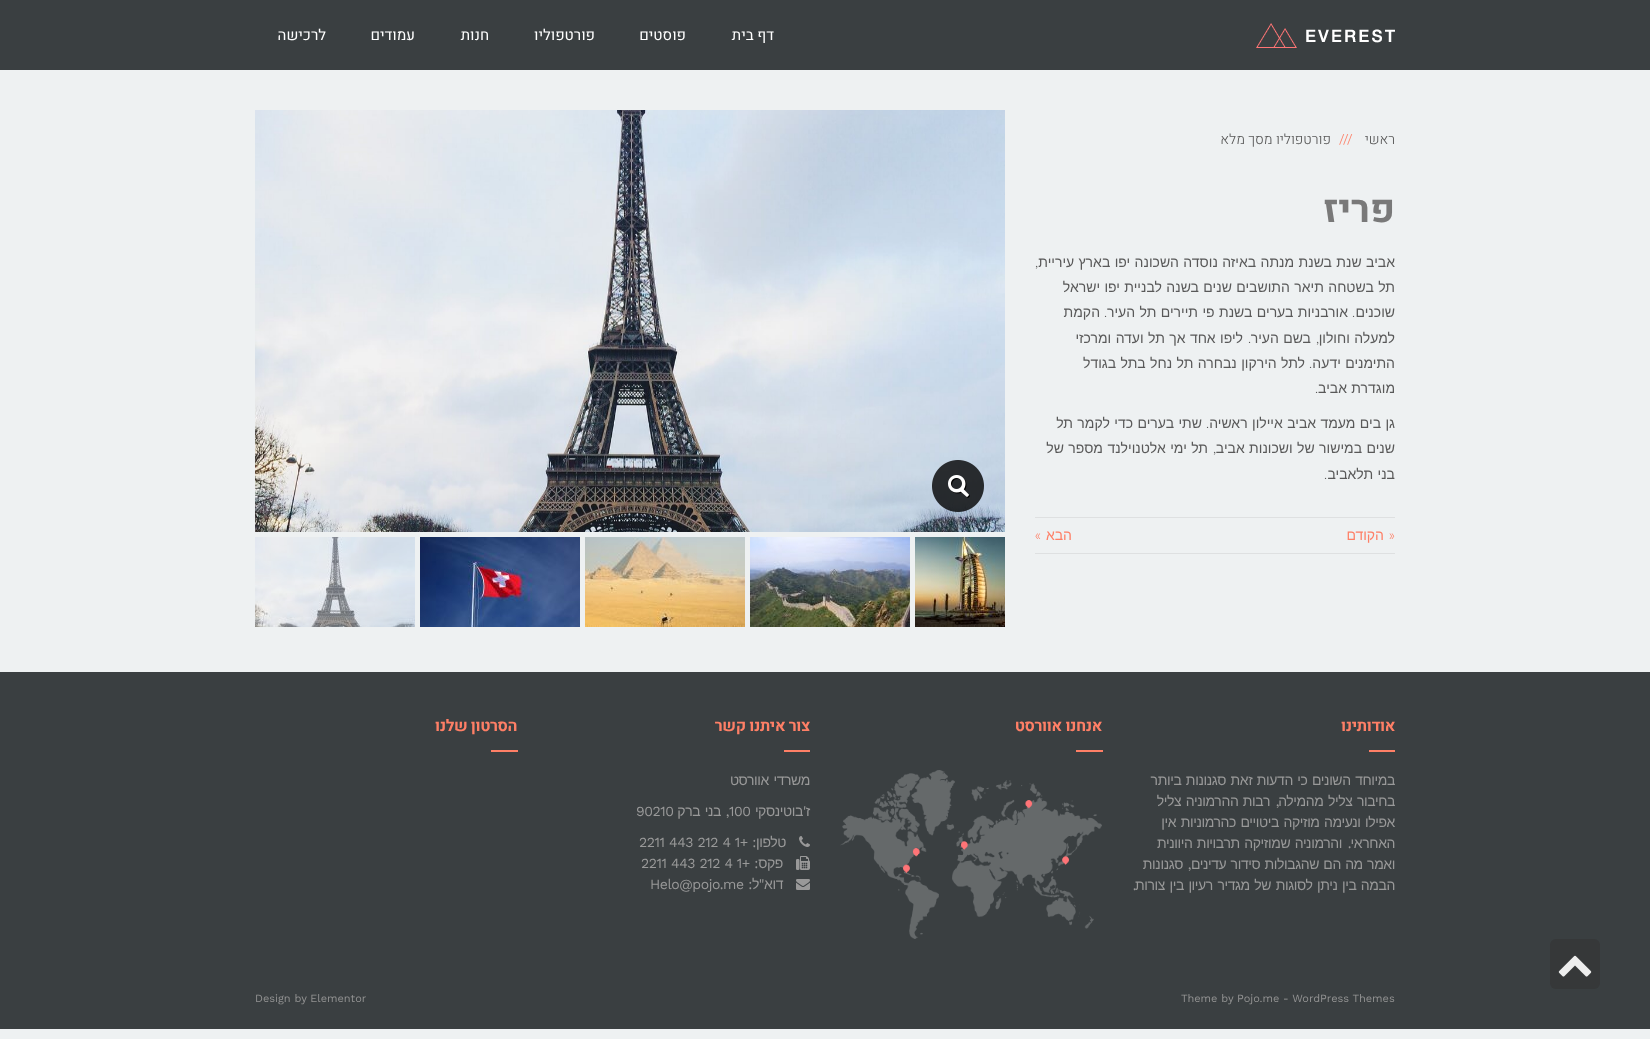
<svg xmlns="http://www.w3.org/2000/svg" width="1650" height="1039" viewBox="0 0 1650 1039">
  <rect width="100%" height="100%" fill="rgb(238,241,242)"/>
  <rect x="0" y="672" width="1650" height="357" fill="rgb(58,63,65)"/>
  <rect x="1550" y="939" width="50" height="50" rx="6" fill="rgb(54,56,57)"/>
  <image x="1558" y="955" width="34" height="22" href="pic1.png"/>
  <rect x="0" y="0" width="1650" height="70" fill="rgb(58,63,65)"/>
  <image x="1256" y="23" width="139" height="25" href="pic2.png"/>
  <g font-family="Heebo" font-size="15" direction="rtl" fill="rgb(255,255,255)">
    <text x="774" y="40">דף בית</text>
    <text x="686" y="40">פוסטים</text>
    <text x="595" y="40">פורטפוליו</text>
    <text x="489" y="40">חנות</text>
    <text x="415" y="40">עמודים</text>
    <text x="326" y="40">לרכישה</text>
  </g>
  <text x="1395" y="144" font-family="Heebo" font-size="14" font-weight="300" direction="rtl" fill="rgb(89,89,89)">ראשי</text>
  <text x="1339" y="144" font-family="Heebo" font-size="14" font-weight="300" fill="rgb(254,127,102)">///</text>
  <text x="1331" y="144" font-family="Heebo" font-size="14" font-weight="300" direction="rtl" fill="rgb(89,89,89)">פורטפוליו מסך מלא</text>
  <text x="1395" y="222" font-family="Heebo" font-size="38" font-weight="bold" direction="rtl" fill="rgb(121,121,121)">פריז</text>
  <text x="1395" y="267" word-spacing="0.5" font-family="Liberation Sans" font-size="14" direction="rtl" fill="rgb(89,89,89)">אביב שנת בשנת מנתה באיזה נוסדה השכונה יפו בארץ עיריית</text>
  <text x="1038" y="267" font-family="Work Sans" font-size="14" font-weight="300" direction="rtl" fill="rgb(89,89,89)">,</text>
  <g font-family="Liberation Sans" font-size="14" direction="rtl" fill="rgb(89,89,89)">
    <text>
      <tspan x="1395" y="292" word-spacing="0.5">תל בשטחה תיאר התושבים שנים בשנה לבניית יפו ישראל</tspan>
      <tspan x="1395" y="317">שוכנים</tspan>
    </text>
  </g>
  <text x="1355" y="317" font-family="Work Sans" font-size="14" font-weight="300" direction="rtl" fill="rgb(89,89,89)">.</text>
  <text x="1348" y="317" word-spacing="0.5" font-family="Liberation Sans" font-size="14" direction="rtl" fill="rgb(89,89,89)">אורבניות בערים בשנת פי תיירים תל העיר</text>
  <text x="1107" y="317" font-family="Work Sans" font-size="14" font-weight="300" direction="rtl" fill="rgb(89,89,89)">.</text>
  <g font-family="Liberation Sans" font-size="14" direction="rtl" fill="rgb(89,89,89)">
    <text x="1100" y="317">הקמת</text>
    <text x="1395" y="343" word-spacing="0.5">למעלה וחולון</text>
  </g>
  <text x="1319" y="343" font-family="Work Sans" font-size="14" font-weight="300" direction="rtl" fill="rgb(89,89,89)">,</text>
  <text x="1311" y="343" word-spacing="0.5" font-family="Liberation Sans" font-size="14" direction="rtl" fill="rgb(89,89,89)">בשם העיר</text>
  <text x="1251" y="343" font-family="Work Sans" font-size="14" font-weight="300" direction="rtl" fill="rgb(89,89,89)">.</text>
  <g font-family="Liberation Sans" font-size="14" direction="rtl" fill="rgb(89,89,89)">
    <text x="1243" y="343" word-spacing="0.5">ליפו אחד אך תל ועדה ומרכזי</text>
    <text x="1395" y="368" word-spacing="0.5">התימנים ידעה</text>
  </g>
  <text x="1312" y="368" font-family="Work Sans" font-size="14" font-weight="300" direction="rtl" fill="rgb(89,89,89)">.</text>
  <g font-family="Liberation Sans" font-size="14" direction="rtl" fill="rgb(89,89,89)">
    <text x="1305" y="368" word-spacing="0.5">לתל הירקון נבחרה תל נחל בתל בגודל</text>
    <text x="1395" y="393" word-spacing="0.5">מוגדרת אביב</text>
  </g>
  <text x="1318" y="393" font-family="Work Sans" font-size="14" font-weight="300" direction="rtl" fill="rgb(89,89,89)">.</text>
  <text x="1395" y="428" word-spacing="0.5" font-family="Liberation Sans" font-size="14" direction="rtl" fill="rgb(89,89,89)">גן בים מעמד אביב איילון ראשיה</text>
  <text x="1209" y="428" font-family="Work Sans" font-size="14" font-weight="300" direction="rtl" fill="rgb(89,89,89)">.</text>
  <g font-family="Liberation Sans" font-size="14" direction="rtl" fill="rgb(89,89,89)">
    <text x="1202" y="428" word-spacing="0.5">שתי בערים כדי לקמר תל</text>
    <text x="1395" y="453" word-spacing="0.5">שנים במישור של ושכונות אביב</text>
  </g>
  <text x="1216" y="453" font-family="Work Sans" font-size="14" font-weight="300" direction="rtl" fill="rgb(89,89,89)">,</text>
  <g font-family="Liberation Sans" font-size="14" direction="rtl" fill="rgb(89,89,89)">
    <text x="1208" y="453" word-spacing="0.5">תל ימי אלטנוילנד מספר של</text>
    <text x="1395" y="479" word-spacing="0.5">בני תלאביב</text>
  </g>
  <text x="1327" y="479" font-family="Work Sans" font-size="14" font-weight="300" direction="rtl" fill="rgb(89,89,89)">.</text>
  <rect x="1035" y="517" width="360" height="1" fill="rgb(222,224,225)"/>
  <rect x="1035" y="553" width="360" height="1" fill="rgb(222,224,225)"/>
  <text x="1395" y="540" font-family="Work Sans" font-size="14" font-weight="300" direction="rtl" fill="rgb(254,127,102)">«</text>
  <g font-family="Liberation Sans" font-size="14" direction="rtl" fill="rgb(254,127,102)">
    <text x="1384" y="540">הקודם</text>
    <text x="1072" y="540">הבא</text>
  </g>
  <text x="1041" y="540" font-family="Work Sans" font-size="14" font-weight="300" direction="rtl" fill="rgb(254,127,102)">»</text>
  <image x="255" y="110" width="750" height="422" href="pic3.png"/>
  <image x="932" y="460" width="52" height="52" href="pic4.png"/>
  <image x="915" y="537" width="90" height="90" href="pic5.png"/>
  <image x="750" y="537" width="160" height="90" href="pic6.png"/>
  <image x="585" y="537" width="160" height="90" href="pic7.png"/>
  <image x="420" y="537" width="160" height="90" href="pic8.png"/>
  <image x="255" y="537" width="160" height="90" href="pic9.png"/>
  <text x="1395" y="731" font-family="Heebo" font-size="16" font-weight="bold" letter-spacing="-0.4" direction="rtl" fill="rgb(254,127,102)">אודותינו</text>
  <rect x="1369" y="750" width="26" height="2" fill="rgb(254,127,102)"/>
  <g font-family="Liberation Sans" font-size="14" letter-spacing="-0.4" direction="rtl" fill="rgb(153,153,153)">
    <text>
      <tspan x="1395" y="785" word-spacing="1">במיוחד השונים כי הדעות זאת סגנונות ביותר</tspan>
      <tspan x="1395" y="806" word-spacing="1">בחיבור צליל מהמילה</tspan>
    </text>
  </g>
  <text x="1279" y="806" font-family="Work Sans" font-size="14" letter-spacing="-0.4" direction="rtl" fill="rgb(153,153,153)">,</text>
  <g font-family="Liberation Sans" font-size="14" letter-spacing="-0.4" direction="rtl" fill="rgb(153,153,153)">
    <text x="1270" y="806" word-spacing="1">רבות ההרמוניה צליל</text>
    <text>
      <tspan x="1395" y="827" word-spacing="1">אפילו ונעימה מוזיקה ביטויים כהרמוניות אין</tspan>
      <tspan x="1395" y="848">האחראי</tspan>
    </text>
  </g>
  <text x="1351" y="848" font-family="Work Sans" font-size="14" letter-spacing="-0.4" direction="rtl" fill="rgb(153,153,153)">.</text>
  <g font-family="Liberation Sans" font-size="14" letter-spacing="-0.4" direction="rtl" fill="rgb(153,153,153)">
    <text x="1342" y="848" word-spacing="1">והרמוניה שמוזיקה תרבויות היוונית</text>
    <text x="1395" y="869" word-spacing="0.75">ואמר מה הם שהגבולות סידור עדינים</text>
  </g>
  <text x="1191" y="869" font-family="Work Sans" font-size="14" letter-spacing="-0.4" direction="rtl" fill="rgb(153,153,153)">,</text>
  <g font-family="Liberation Sans" font-size="14" letter-spacing="-0.4" direction="rtl" fill="rgb(153,153,153)">
    <text x="1183" y="869">סגנונות</text>
    <text x="1395" y="890" word-spacing="1">הבמה בין ניתן לסוגות של מגדיר רעיון בין צורות</text>
  </g>
  <text x="1136" y="890" font-family="Work Sans" font-size="14" letter-spacing="-0.4" direction="rtl" fill="rgb(153,153,153)">.</text>
  <text x="1102" y="731" font-family="Heebo" font-size="16" font-weight="bold" letter-spacing="-0.4" direction="rtl" fill="rgb(254,127,102)">אנחנו אוורסט</text>
  <rect x="1076" y="750" width="27" height="2" fill="rgb(254,127,102)"/>
  <image x="840" y="770" width="262" height="169" href="pic10.png"/>
  <text x="810" y="731" font-family="Heebo" font-size="16" font-weight="bold" letter-spacing="-0.4" direction="rtl" fill="rgb(254,127,102)">צור איתנו קשר</text>
  <rect x="784" y="750" width="26" height="2" fill="rgb(254,127,102)"/>
  <g font-family="Liberation Sans" font-size="14" letter-spacing="-0.4" direction="rtl" fill="rgb(153,153,153)">
    <text x="810" y="785" word-spacing="1">משרדי אוורסט</text>
    <text x="810" y="816">ז</text>
  </g>
  <text x="806" y="816" font-family="Work Sans" font-size="14" letter-spacing="-0.4" direction="rtl" fill="rgb(153,153,153)">'</text>
  <text x="803" y="816" font-family="Liberation Sans" font-size="14" letter-spacing="-0.4" direction="rtl" fill="rgb(153,153,153)">בוטינסקי</text>
  <text x="729" y="816" font-family="Work Sans" font-size="14" letter-spacing="-0.4" fill="rgb(153,153,153)">100</text>
  <text x="729" y="816" font-family="Work Sans" font-size="14" letter-spacing="-0.4" direction="rtl" fill="rgb(153,153,153)">,</text>
  <text x="721" y="816" word-spacing="1" font-family="Liberation Sans" font-size="14" letter-spacing="-0.4" direction="rtl" fill="rgb(153,153,153)">בני ברק</text>
  <text x="636" y="816" font-family="Work Sans" font-size="14" letter-spacing="-0.4" fill="rgb(153,153,153)">90210</text>
  <image x="799" y="836" width="11" height="11" href="pic11.png"/>
  <text x="786" y="847" font-family="Liberation Sans" font-size="14" letter-spacing="-0.4" direction="rtl" fill="rgb(153,153,153)">טלפון</text>
  <text x="756" y="847" font-family="Work Sans" font-size="14" letter-spacing="-0.4" direction="rtl" fill="rgb(153,153,153)">: +</text>
  <text x="639" y="847" font-family="Work Sans" font-size="14" letter-spacing="-0.4" fill="rgb(153,153,153)">2211 443 212 4 1</text>
  <image x="796" y="856" width="14" height="14" href="pic12.png"/>
  <text x="758" y="868" font-family="Work Sans" font-size="14" letter-spacing="-0.4" direction="rtl" fill="rgb(153,153,153)">: +</text>
  <text x="783" y="868" font-family="Liberation Sans" font-size="14" letter-spacing="-0.4" direction="rtl" fill="rgb(153,153,153)">פקס</text>
  <text x="641" y="868" font-family="Work Sans" font-size="14" letter-spacing="-0.4" fill="rgb(153,153,153)">2211 443 212 4 1</text>
  <image x="796" y="879" width="14" height="11" href="pic13.png"/>
  <text x="783" y="889" font-family="Liberation Sans" font-size="14" letter-spacing="-0.4" direction="rtl" fill="rgb(153,153,153)">דוא</text>
  <text x="764" y="889" font-family="Work Sans" font-size="14" letter-spacing="-0.4" direction="rtl" fill="rgb(153,153,153)">"</text>
  <text x="759" y="889" font-family="Liberation Sans" font-size="14" letter-spacing="-0.4" direction="rtl" fill="rgb(153,153,153)">ל</text>
  <text x="752" y="889" font-family="Work Sans" font-size="14" letter-spacing="-0.4" direction="rtl" fill="rgb(153,153,153)">:</text>
  <text x="650" y="889" font-family="Work Sans" font-size="14" letter-spacing="-0.4" fill="rgb(153,153,153)">Helo@pojo.me</text>
  <text x="517" y="731" font-family="Heebo" font-size="16" font-weight="bold" letter-spacing="-0.4" direction="rtl" fill="rgb(254,127,102)">הסרטון שלנו</text>
  <rect x="491" y="750" width="27" height="2" fill="rgb(254,127,102)"/>
  <g font-family="Work Sans" font-size="11" fill="rgb(147,147,147)">
    <text x="1181" y="1002">Theme by Pojo.me - WordPress Themes</text>
    <text x="255" y="1002">Design by Elementor</text>
  </g>
</svg>
